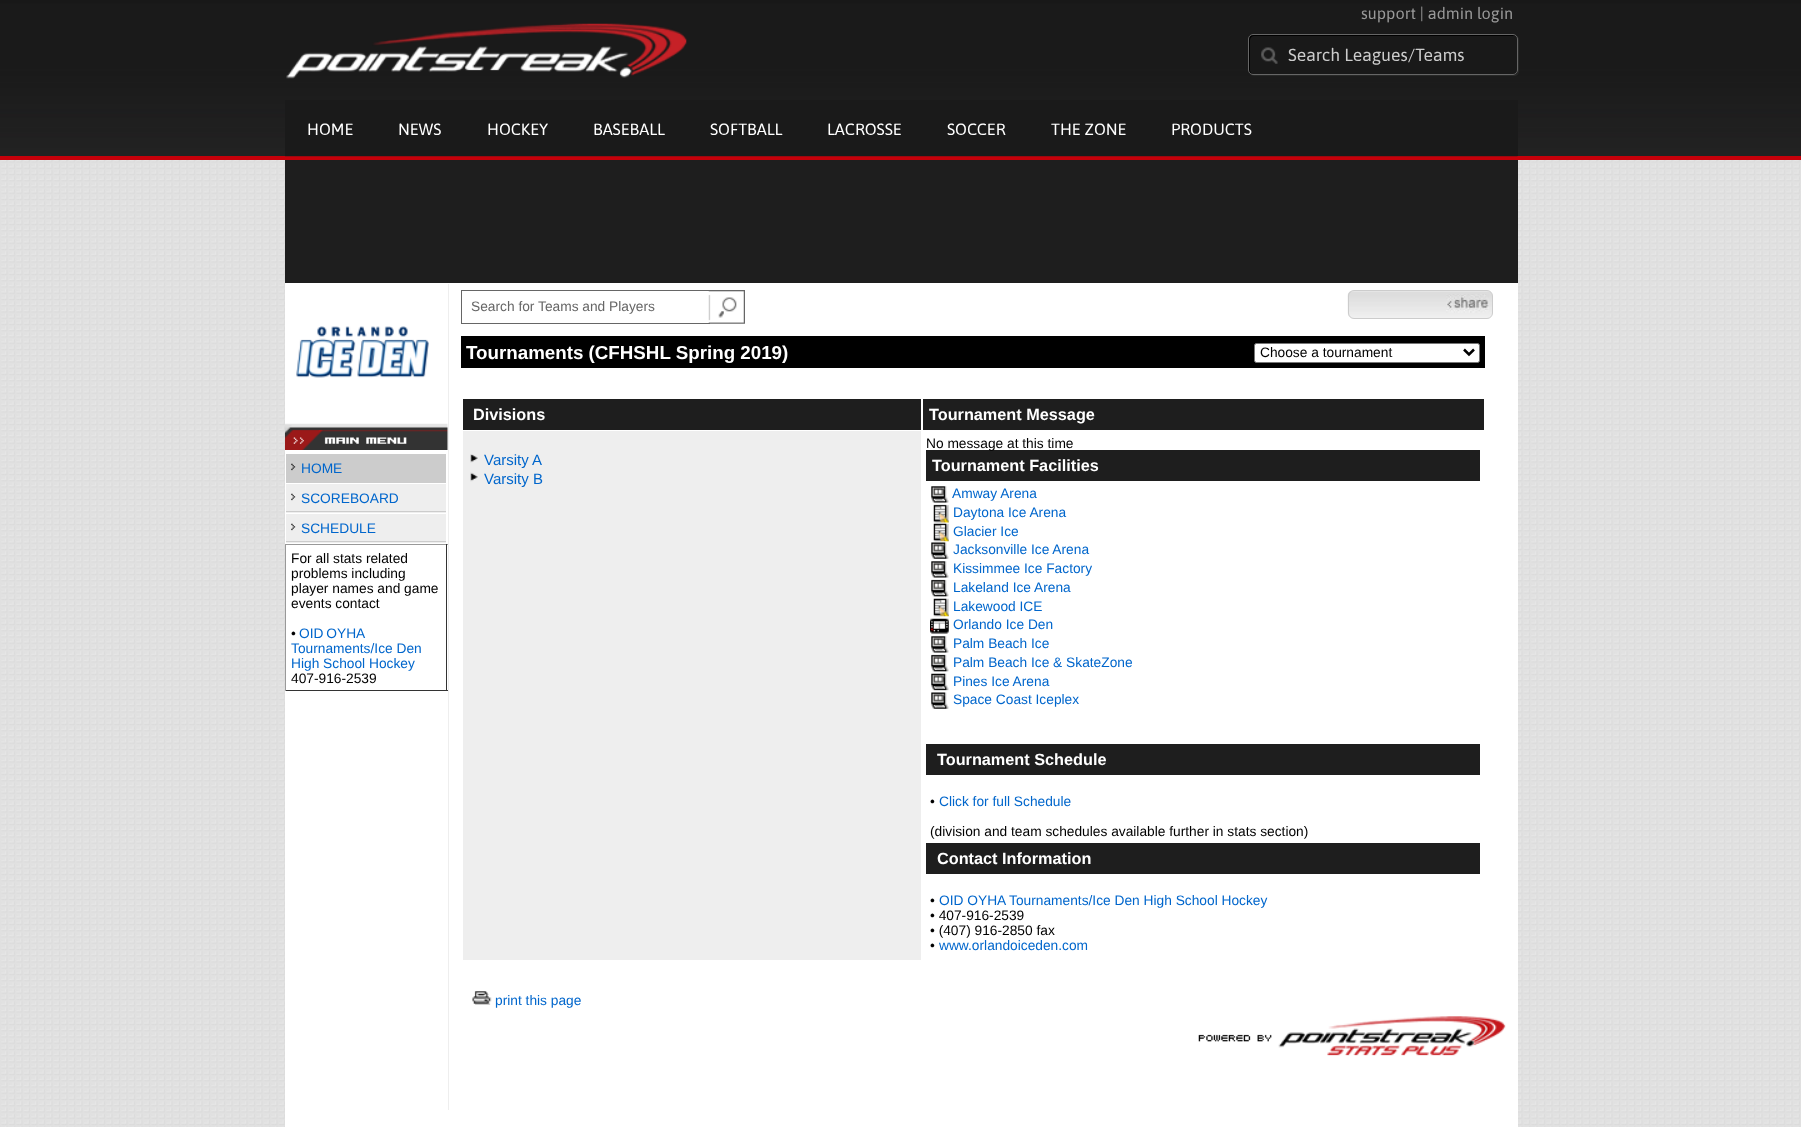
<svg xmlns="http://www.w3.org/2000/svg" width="1801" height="1127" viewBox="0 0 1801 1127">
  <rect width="100%" height="100%" fill="rgb(255,255,255)"/>
  <image x="0" y="160" width="1801" height="967" href="pic1.png"/>
  <image x="0" y="0" width="1801" height="156" href="pic2.png"/>
  <rect x="0" y="156" width="1801" height="4" fill="rgb(198,0,10)"/>
  <image x="285" y="156" width="1233" height="1" href="pic3.png"/>
  <image x="286" y="23" width="401" height="56" href="pic4.png"/>
  <text x="1361" y="19" font-family="Asap" font-size="16.25" fill="rgb(153,153,153)">support | admin login</text>
  <path d="M1251 75C1251 75 1253 76 1254 76H1514C1517 76 1519 74 1519 71V40C1519 38 1518 36 1516 36C1517 36 1518 38 1518 39V70C1518 73 1515 75 1512 75H1252Z" fill="rgb(39,40,39)"/>
  <rect x="1248" y="34" width="270" height="41" rx="5" fill="rgb(25,25,25)"/>
  <image x="1261" y="47" width="17" height="17" href="pic5.png"/>
  <path d="M1254 36H1515C1514 35 1513 35 1512 35H1253C1251 35 1249 37 1249 39V70C1249 71 1250 73 1251 73L1250 71V40C1250 38 1252 36 1254 36Z" fill="rgb(0,0,0)"/>
  <rect x="1248.5" y="34.5" width="269" height="40" rx="4.5" fill="none" stroke="rgb(102,102,102)"/>
  <text x="1288" y="61" font-family="Asap" font-size="17.5" fill="rgb(204,204,204)">Search Leagues/Teams</text>
  <rect x="285" y="100" width="1233" height="56" fill="rgb(26,26,26)"/>
  <g font-family="Asap" font-size="16.25" fill="rgb(255,255,255)">
    <text x="307" y="135">HOME</text>
    <text x="398" y="135">NEWS</text>
    <text x="487" y="135">HOCKEY</text>
    <text x="593" y="135">BASEBALL</text>
    <text x="710" y="135">SOFTBALL</text>
    <text x="827" y="135">LACROSSE</text>
    <text x="947" y="135">SOCCER</text>
    <text x="1051" y="135">THE ZONE</text>
    <text x="1171" y="135">PRODUCTS</text>
  </g>
  <rect x="285" y="160" width="1233" height="123" fill="rgb(30,30,30)"/>
  <rect x="285" y="283" width="1233" height="844" fill="rgb(255,255,255)"/>
  <rect x="448" y="284" width="1" height="826" fill="rgb(238,238,238)"/>
  <image x="296" y="326" width="133" height="52" href="pic6.png"/>
  <image x="285" y="423" width="163" height="27" href="pic7.png"/>
  <rect x="286" y="454" width="160" height="29" fill="rgb(204,204,204)"/>
  <image x="291" y="463" width="5" height="8" href="pic8.png"/>
  <text x="301" y="473" font-family="Liberation Sans" font-size="13.75" fill="rgb(0,102,204)">HOME</text>
  <rect x="286" y="484" width="160" height="29" fill="rgb(238,238,238)"/>
  <rect x="286" y="511" width="160" height="1" fill="rgb(204,204,204)"/>
  <image x="291" y="493" width="5" height="8" href="pic9.png"/>
  <text x="301" y="503" font-family="Liberation Sans" font-size="13.75" fill="rgb(0,102,204)">SCOREBOARD</text>
  <rect x="286" y="514" width="160" height="29" fill="rgb(238,238,238)"/>
  <rect x="286" y="541" width="160" height="1" fill="rgb(204,204,204)"/>
  <image x="291" y="523" width="5" height="8" href="pic9.png"/>
  <text x="301" y="533" font-family="Liberation Sans" font-size="13.75" fill="rgb(0,102,204)">SCHEDULE</text>
  <rect x="285" y="544" width="163" height="1" fill="rgb(153,153,153)"/>
  <rect x="446" y="544" width="1" height="147" fill="rgb(51,51,51)"/>
  <rect x="285" y="690" width="163" height="1" fill="rgb(51,51,51)"/>
  <rect x="285" y="544" width="1" height="147" fill="rgb(153,153,153)"/>
  <g font-family="Liberation Sans" font-size="13.75" fill="rgb(0,0,0)">
    <text>
      <tspan x="291" y="563">For all stats related</tspan>
      <tspan x="291" y="578">problems including</tspan>
      <tspan x="291" y="593">player names and game</tspan>
      <tspan x="291" y="608">events contact</tspan>
    </text>
    <text x="291" y="638">•</text>
  </g>
  <g font-family="Liberation Sans" font-size="13.75" fill="rgb(0,102,204)">
    <text x="299" y="638" word-spacing="-1">OID OYHA</text>
    <text>
      <tspan x="291" y="653">Tournaments/Ice Den</tspan>
      <tspan x="291" y="668">High School Hockey</tspan>
    </text>
  </g>
  <text x="291" y="683" font-family="Liberation Sans" font-size="13.75" fill="rgb(0,0,0)">407-916-2539</text>
  <rect x="461.5" y="290.5" width="248" height="33" fill="none" stroke="rgb(102,102,102)"/>
  <text x="471" y="311" font-family="Liberation Sans" font-size="13.75" fill="rgb(102,102,102)">Search for Teams and Players</text>
  <image x="708" y="290" width="37" height="34" href="pic10.png"/>
  <image x="1347" y="291" width="146" height="28" href="pic11.png"/>
  <rect x="1348.5" y="290.5" width="144" height="28" rx="5.5" fill="none" stroke="rgb(204,204,204)"/>
  <image x="1446" y="294" width="43" height="19" href="pic12.png"/>
  <rect x="461" y="336" width="1024" height="32" fill="rgb(0,0,0)"/>
  <text x="466" y="359" font-family="Liberation Sans" font-size="18.75" font-weight="bold" fill="rgb(255,255,255)">Tournaments (CFHSHL Spring 2019)</text>
  <rect x="1254.5" y="343.5" width="225" height="19" rx="2" fill="rgb(255,255,255)" stroke="rgb(118,118,118)"/>
  <path d="M1464 349.5L1469 354.5L1474 349.5" fill="none" stroke="rgb(0,0,0)" stroke-width="2.5"/>
  <text x="1260" y="357" font-family="Liberation Sans" font-size="13.75" fill="rgb(0,0,0)">Choose a tournament</text>
  <rect x="463" y="399" width="458" height="31" fill="rgb(30,30,30)"/>
  <text x="473" y="420" font-family="Liberation Sans" font-size="16.25" font-weight="bold" fill="rgb(255,255,255)">Divisions</text>
  <rect x="923" y="399" width="561" height="31" fill="rgb(30,30,30)"/>
  <text x="929" y="420" font-family="Liberation Sans" font-size="16.25" font-weight="bold" fill="rgb(255,255,255)">Tournament Message</text>
  <rect x="463" y="431" width="458" height="529" fill="rgb(238,238,238)"/>
  <image x="470" y="454" width="8" height="9" href="pic13.png"/>
  <text x="484" y="465" font-family="Liberation Sans" font-size="15" fill="rgb(0,102,204)">Varsity A</text>
  <image x="470" y="472" width="8" height="10" href="pic14.png"/>
  <text x="484" y="484" font-family="Liberation Sans" font-size="15" fill="rgb(0,102,204)">Varsity B</text>
  <rect x="926" y="450" width="554" height="31" fill="rgb(30,30,30)"/>
  <text x="926" y="448" font-family="Liberation Sans" font-size="13.75" fill="rgb(0,0,0)">No message at this time</text>
  <text x="932" y="471" font-family="Liberation Sans" font-size="16.25" font-weight="bold" fill="rgb(255,255,255)">Tournament Facilities</text>
  <image x="931" y="486" width="18" height="17" href="pic15.png"/>
  <text x="952" y="498" font-family="Liberation Sans" font-size="13.75" fill="rgb(0,102,204)">Amway Arena</text>
  <image x="933" y="504" width="16" height="19" href="pic16.png"/>
  <text x="953" y="517" font-family="Liberation Sans" font-size="13.75" fill="rgb(0,102,204)">Daytona Ice Arena</text>
  <image x="933" y="523" width="16" height="19" href="pic17.png"/>
  <text x="953" y="536" font-family="Liberation Sans" font-size="13.75" fill="rgb(0,102,204)">Glacier Ice</text>
  <image x="931" y="542" width="18" height="17" href="pic18.png"/>
  <text x="953" y="554" font-family="Liberation Sans" font-size="13.75" fill="rgb(0,102,204)">Jacksonville Ice Arena</text>
  <image x="931" y="561" width="18" height="17" href="pic15.png"/>
  <text x="953" y="573" font-family="Liberation Sans" font-size="13.75" fill="rgb(0,102,204)">Kissimmee Ice Factory</text>
  <image x="931" y="579" width="18" height="18" href="pic19.png"/>
  <text x="953" y="592" font-family="Liberation Sans" font-size="13.75" fill="rgb(0,102,204)">Lakeland Ice Arena</text>
  <image x="933" y="598" width="16" height="19" href="pic17.png"/>
  <text x="953" y="611" font-family="Liberation Sans" font-size="13.75" fill="rgb(0,102,204)">Lakewood ICE</text>
  <image x="930" y="618" width="19" height="16" href="pic20.png"/>
  <text x="953" y="629" font-family="Liberation Sans" font-size="13.75" fill="rgb(0,102,204)">Orlando Ice Den</text>
  <image x="931" y="636" width="18" height="17" href="pic15.png"/>
  <text x="953" y="648" font-family="Liberation Sans" font-size="13.75" fill="rgb(0,102,204)">Palm Beach Ice</text>
  <image x="931" y="654" width="18" height="18" href="pic21.png"/>
  <text x="953" y="667" font-family="Liberation Sans" font-size="13.75" fill="rgb(0,102,204)">Palm Beach Ice &amp; SkateZone</text>
  <image x="931" y="673" width="18" height="18" href="pic22.png"/>
  <text x="953" y="686" font-family="Liberation Sans" font-size="13.75" fill="rgb(0,102,204)">Pines Ice Arena</text>
  <image x="931" y="692" width="18" height="17" href="pic18.png"/>
  <text x="953" y="704" font-family="Liberation Sans" font-size="13.75" fill="rgb(0,102,204)">Space Coast Iceplex</text>
  <rect x="926" y="744" width="554" height="31" fill="rgb(30,30,30)"/>
  <text x="937" y="765" font-family="Liberation Sans" font-size="16.25" font-weight="bold" fill="rgb(255,255,255)">Tournament Schedule</text>
  <text x="930" y="806" font-family="Liberation Sans" font-size="13.75" fill="rgb(0,0,0)">•</text>
  <text x="939" y="806" font-family="Liberation Sans" font-size="13.75" fill="rgb(0,102,204)">Click for full Schedule</text>
  <text x="930" y="836" font-family="Liberation Sans" font-size="13.75" fill="rgb(0,0,0)">(division and team schedules available further in stats section)</text>
  <rect x="926" y="843" width="554" height="31" fill="rgb(30,30,30)"/>
  <text x="937" y="864" font-family="Liberation Sans" font-size="16.25" font-weight="bold" fill="rgb(255,255,255)">Contact Information</text>
  <text x="930" y="905" font-family="Liberation Sans" font-size="13.75" fill="rgb(0,0,0)">•</text>
  <text x="939" y="905" font-family="Liberation Sans" font-size="13.75" fill="rgb(0,102,204)">OID OYHA Tournaments/Ice Den High School Hockey</text>
  <g font-family="Liberation Sans" font-size="13.75" fill="rgb(0,0,0)">
    <text>
      <tspan x="930" y="920">• 407-916-2539</tspan>
      <tspan x="930" y="935">• (407) 916-2850 fax</tspan>
      <tspan x="930" y="950">•</tspan>
    </text>
  </g>
  <text x="939" y="950" font-family="Liberation Sans" font-size="13.75" fill="rgb(0,102,204)">www.orlandoiceden.com</text>
  <image x="472" y="991" width="20" height="14" href="pic23.png"/>
  <text x="495" y="1005" font-family="Liberation Sans" font-size="13.75" fill="rgb(0,102,204)">print this page</text>
  <image x="1198" y="1016" width="308" height="40" href="pic24.png"/>
</svg>
